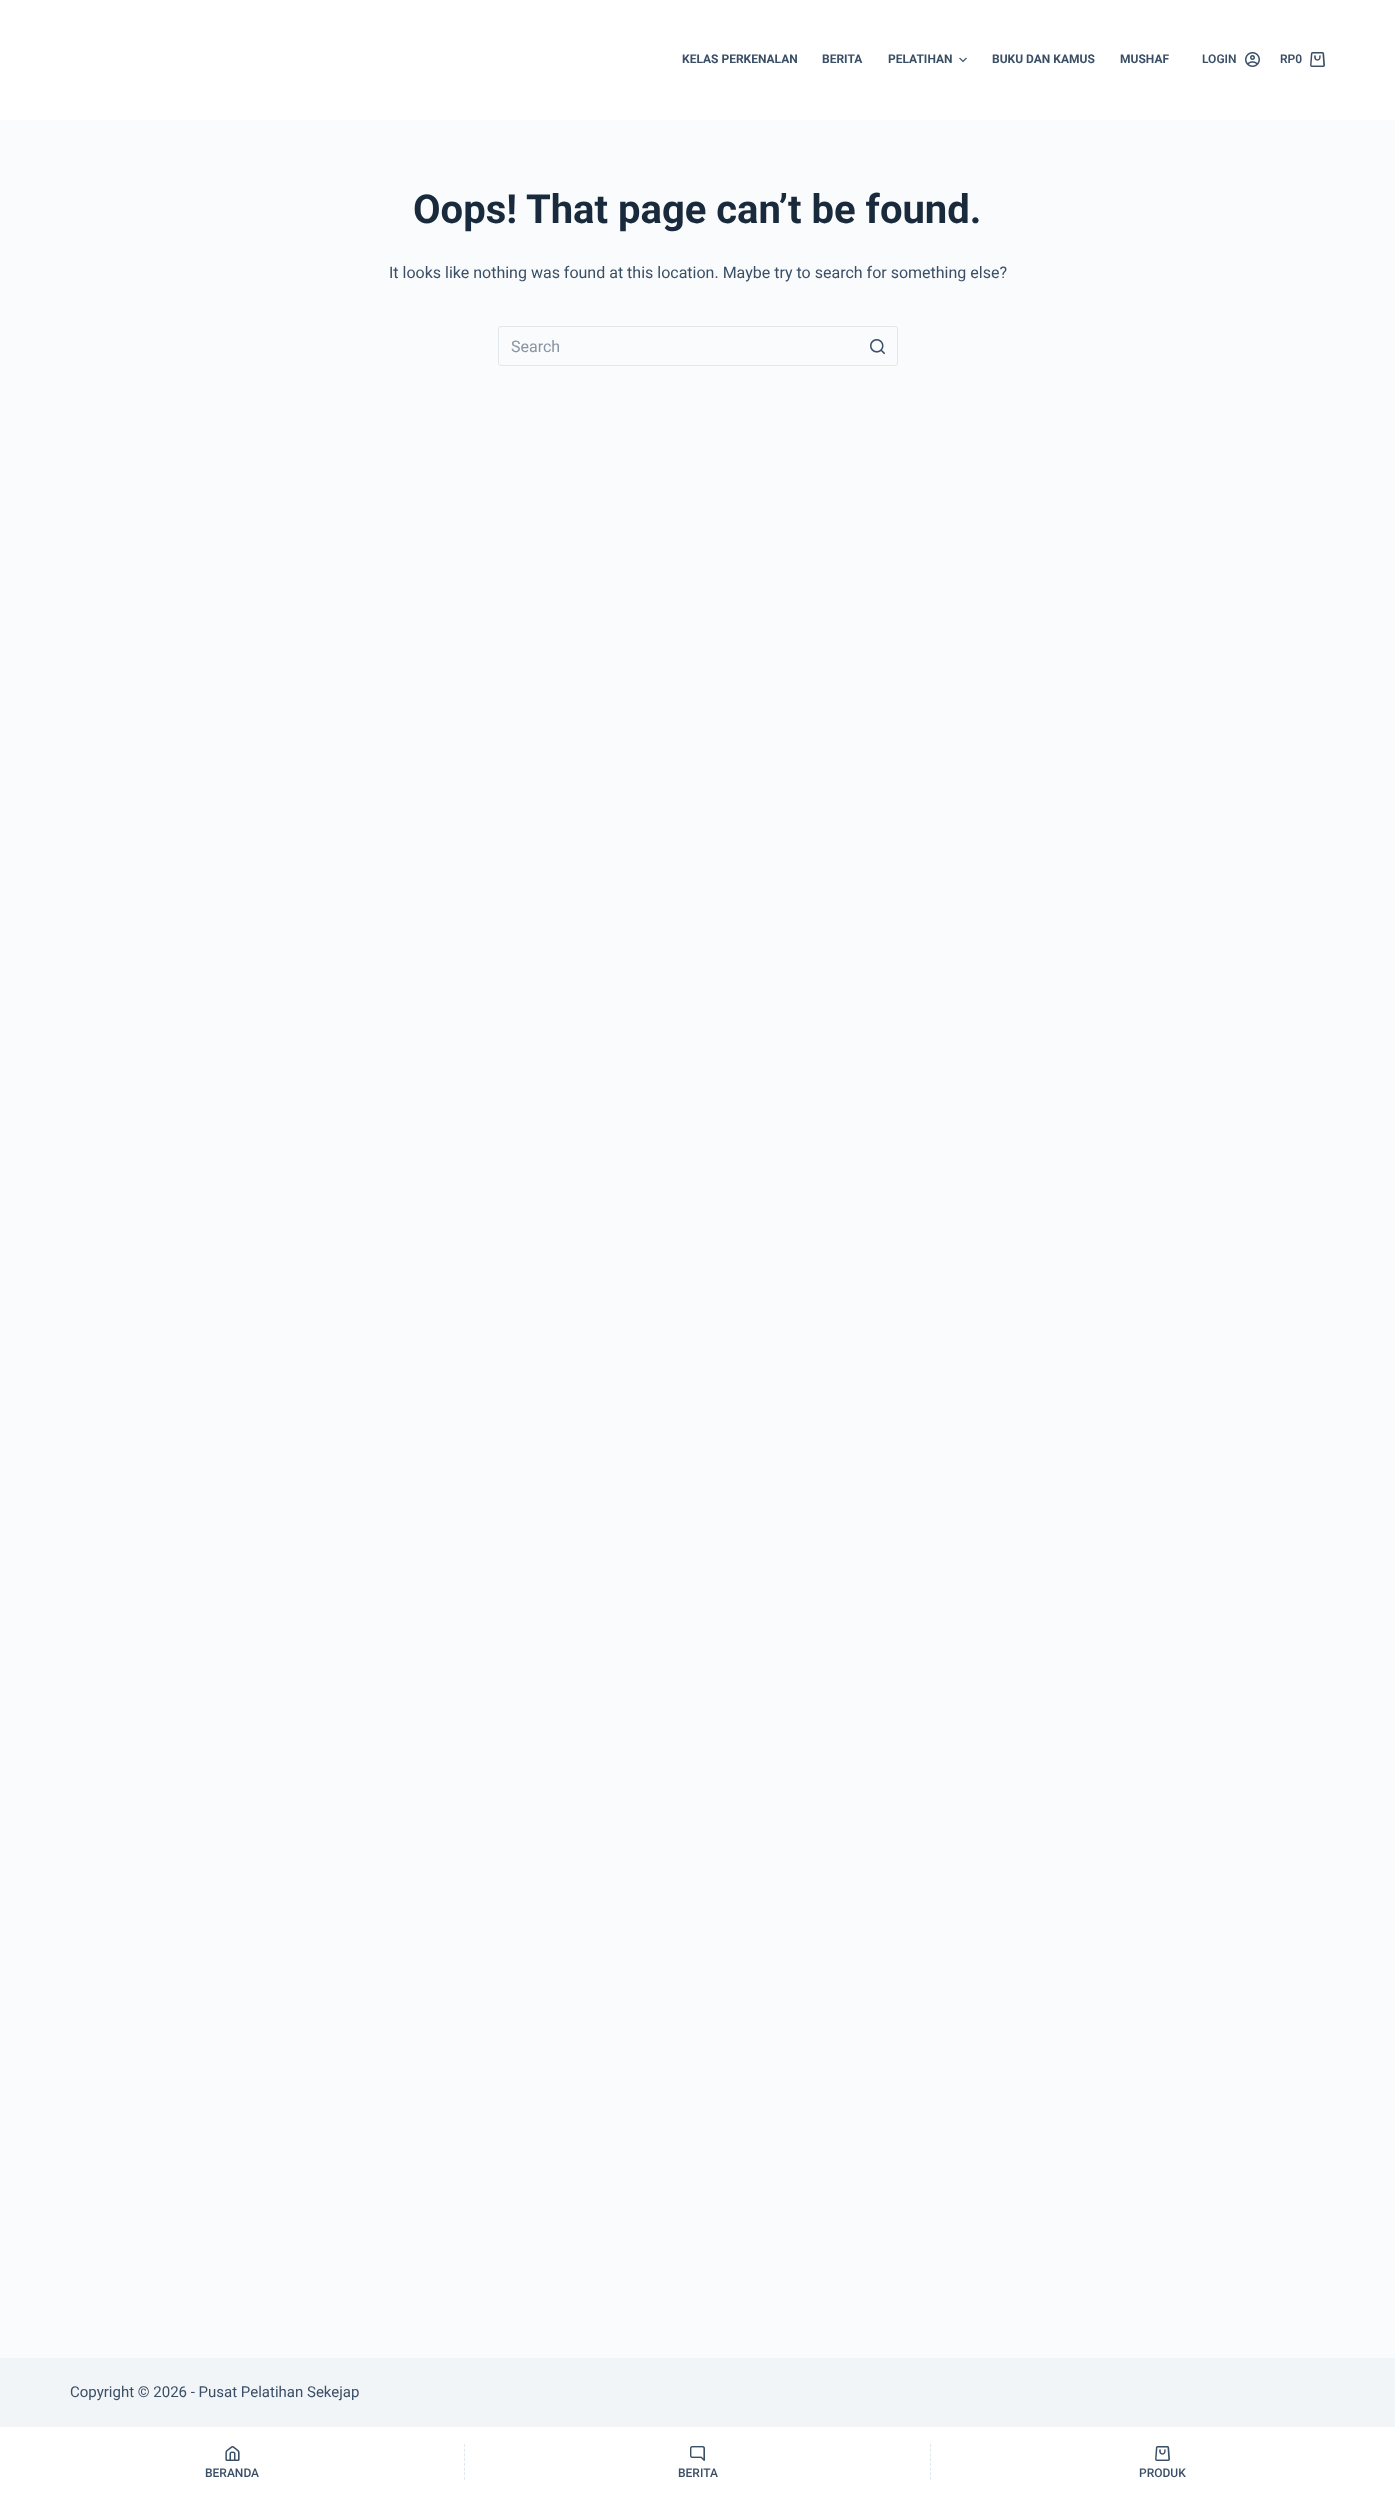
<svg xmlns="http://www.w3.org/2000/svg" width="1395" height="2497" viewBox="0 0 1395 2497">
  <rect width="100%" height="100%" fill="rgb(250,251,252)"/>
  <rect x="0" y="0" width="1395" height="120" fill="rgb(255,255,255)"/>
  <g font-family="Roboto" font-size="12" font-weight="bold" fill="rgb(58,79,102)">
    <text x="682" y="63">KELAS PERKENALAN</text>
    <text x="822" y="63">BERITA</text>
    <text x="888" y="63">PELATIHAN</text>
  </g>
  <image x="959" y="57" width="8" height="6" href="pic1.png"/>
  <g font-family="Roboto" font-size="12" font-weight="bold" fill="rgb(58,79,102)">
    <text x="992" y="63">BUKU DAN KAMUS</text>
    <text x="1120" y="63">MUSHAF</text>
  </g>
  <text x="1202" y="63" font-family="Roboto" font-size="12" font-weight="600" fill="rgb(58,79,102)">LOGIN</text>
  <image x="1245" y="52" width="15" height="15" href="pic2.png"/>
  <text x="1280" y="63" font-family="Roboto" font-size="12" font-weight="600" fill="rgb(58,79,102)">RP0</text>
  <image x="1310" y="52" width="15" height="15" href="pic3.png"/>
  <text x="413" y="223" font-family="Roboto" font-size="40" font-weight="bold" fill="rgb(25,42,61)">Oops! That page can’t be found.</text>
  <text x="389" y="278" font-family="Roboto" font-size="16" fill="rgb(58,79,102)">It looks like nothing was found at this location. Maybe try to search for something else?</text>
  <rect x="498.5" y="326.5" width="399" height="39" rx="2.5" fill="none" stroke="rgb(225,232,237)"/>
  <text x="511" y="352" font-family="Roboto" font-size="16" fill="rgb(135,148,162)">Search</text>
  <image x="870" y="339" width="15" height="15" href="pic4.png"/>
  <rect x="0" y="2358" width="1395" height="69" fill="rgb(242,245,247)"/>
  <text x="70" y="2397" font-family="Roboto" font-size="15" fill="rgb(58,79,102)">Copyright © 2026 - Pusat Pelatihan Sekejap</text>
  <rect x="0" y="2427" width="1395" height="70" fill="rgb(255,255,255)"/>
  <image x="225" y="2446" width="15" height="15" href="pic5.png"/>
  <path d="M464.5 2444V2480" fill="none" stroke="rgb(225,232,237)" stroke-dasharray="3 1.71"/>
  <text x="205" y="2477" font-family="Roboto" font-size="12" font-weight="500" fill="rgb(58,79,102)">BERANDA</text>
  <image x="690" y="2446" width="15" height="15" href="pic6.png"/>
  <path d="M930.5 2444V2480" fill="none" stroke="rgb(225,232,237)" stroke-dasharray="3 1.71"/>
  <text x="678" y="2477" font-family="Roboto" font-size="12" font-weight="500" fill="rgb(58,79,102)">BERITA</text>
  <image x="1155" y="2446" width="15" height="15" href="pic3.png"/>
  <text x="1139" y="2477" font-family="Roboto" font-size="12" font-weight="500" fill="rgb(58,79,102)">PRODUK</text>
</svg>
